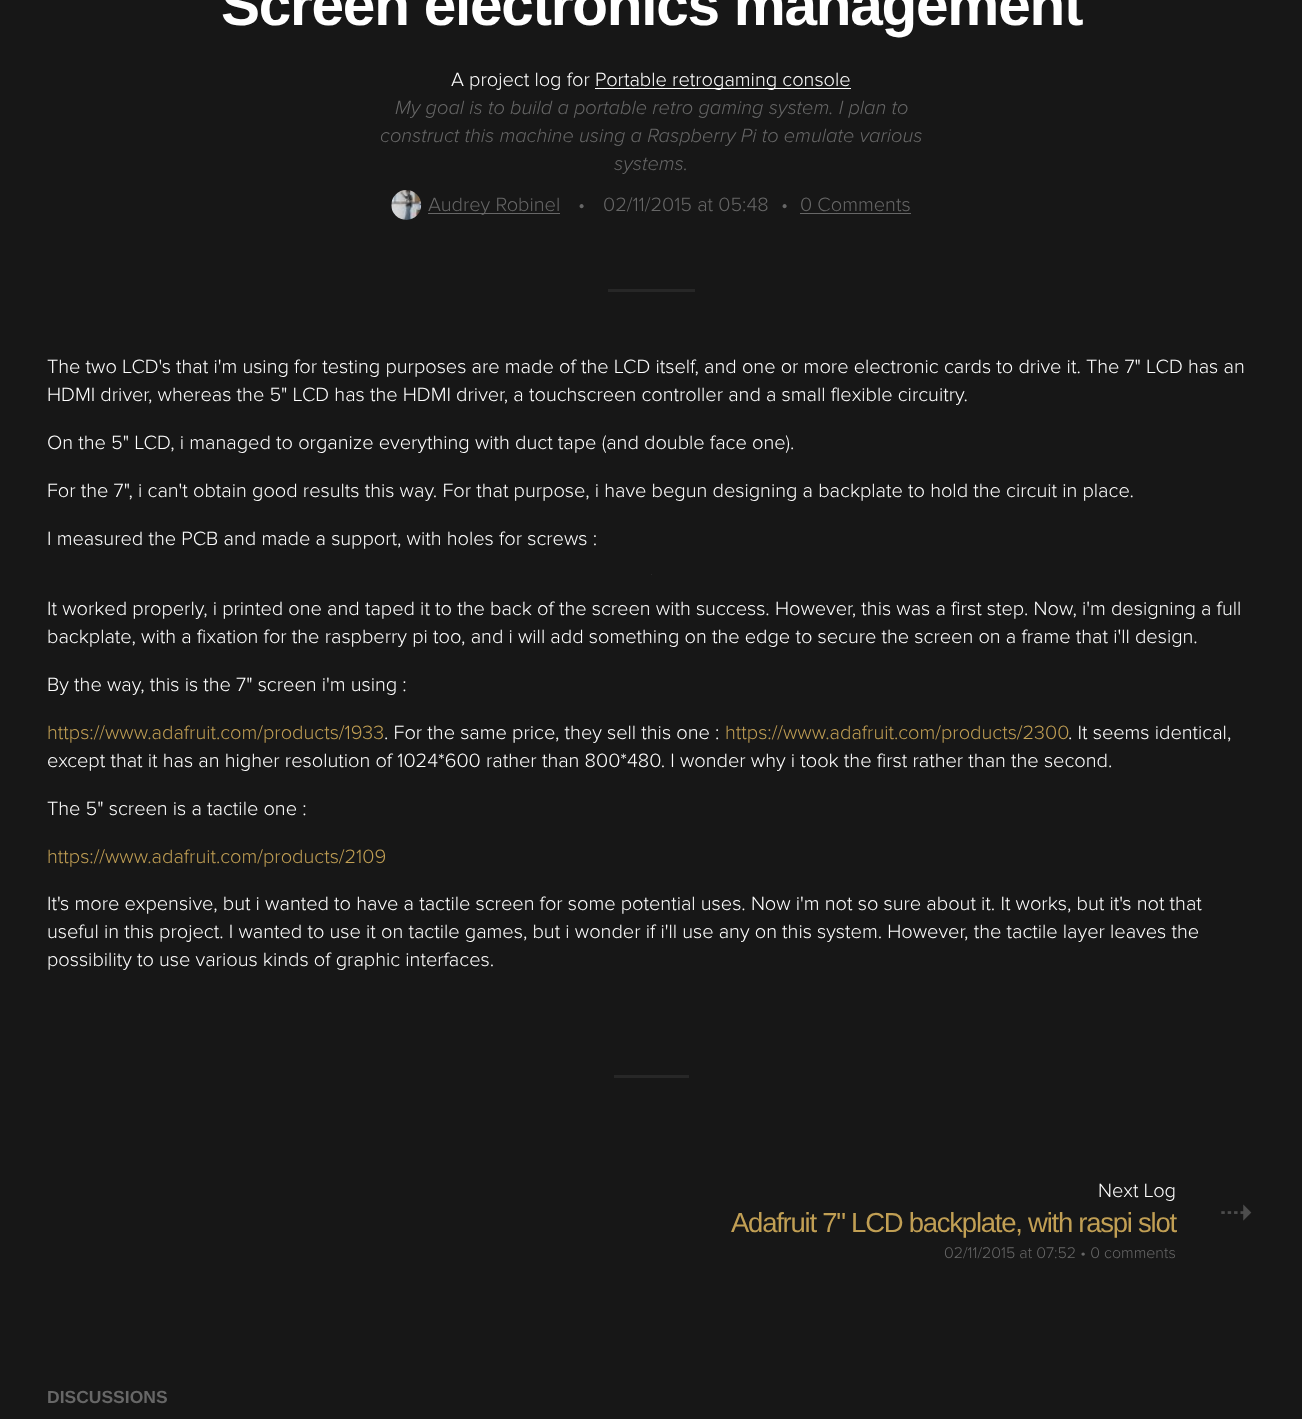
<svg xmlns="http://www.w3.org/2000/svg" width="1302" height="1419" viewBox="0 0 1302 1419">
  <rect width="100%" height="100%" fill="rgb(23,23,23)"/>
  <text x="221" y="25" font-family="Liberation Sans" font-size="58.5" font-weight="bold" letter-spacing="-1.25" fill="rgb(255,255,255)">Screen electronics management</text>
  <text x="451" y="86" font-family="Proxima Nova" font-size="20" font-weight="300" fill="rgb(255,255,255)">A project log for</text>
  <rect x="595" y="88" width="256" height="1" fill="rgb(255,255,255)"/>
  <text x="595" y="86" font-family="Proxima Nova" font-size="20" font-weight="300" fill="rgb(255,255,255)">Portable retrogaming console</text>
  <g font-family="Proxima Nova" font-size="20" font-weight="300" font-style="italic" fill="rgb(103,103,103)">
    <text x="395" y="114">My goal is to build a portable retro gaming system. I plan to</text>
    <text x="380" y="142">construct this machine using a Raspberry Pi to emulate various</text>
    <text x="614" y="170">systems.</text>
  </g>
  <circle cx="406" cy="205" r="15" fill="rgb(0,0,0)"/>
  <image x="391" y="190" width="31" height="30" href="pic1.png"/>
  <rect x="428" y="213" width="132" height="1" fill="rgb(103,103,103)"/>
  <g font-family="Proxima Nova" font-size="20" font-weight="300" fill="rgb(103,103,103)">
    <text x="428" y="211">Audrey Robinel</text>
    <text x="578" y="211">•</text>
    <text x="603" y="211">02/11/2015 at 05:48</text>
    <text x="781" y="211">•</text>
    <text x="800" y="211">0 Comments</text>
  </g>
  <rect x="800" y="213" width="111" height="1" fill="rgb(103,103,103)"/>
  <rect x="608" y="289" width="87" height="3" fill="rgb(39,39,39)"/>
  <g font-family="Proxima Nova" font-size="20" font-weight="300" fill="rgb(255,255,255)">
    <text>
      <tspan x="47" y="373">The two LCD's that i'm using for testing purposes are made of the LCD itself, and one or more electronic cards to drive it. The 7" LCD has an</tspan>
      <tspan x="47" y="401">HDMI driver, whereas the 5" LCD has the HDMI driver, a touchscreen controller and a small flexible circuitry.</tspan>
    </text>
    <text x="47" y="449">On the 5" LCD, i managed to organize everything with duct tape (and double face one).</text>
    <text x="47" y="497">For the 7", i can't obtain good results this way. For that purpose, i have begun designing a backplate to hold the circuit in place.</text>
    <text x="47" y="545">I measured the PCB and made a support, with holes for screws :</text>
  </g>
  <rect x="651" y="574" width="1" height="1" fill="rgb(39,39,39)"/>
  <g font-family="Proxima Nova" font-size="20" font-weight="300" fill="rgb(255,255,255)">
    <text>
      <tspan x="47" y="615">It worked properly, i printed one and taped it to the back of the screen with success. However, this was a first step. Now, i'm designing a full</tspan>
      <tspan x="47" y="643">backplate, with a fixation for the raspberry pi too, and i will add something on the edge to secure the screen on a frame that i'll design.</tspan>
    </text>
    <text x="47" y="691">By the way, this is the 7" screen i'm using :</text>
  </g>
  <text x="47" y="739" font-family="Proxima Nova" font-size="20" font-weight="300" fill="rgb(193,159,84)">https://www.adafruit.com/products/1933</text>
  <text x="384" y="739" font-family="Proxima Nova" font-size="20" font-weight="300" fill="rgb(255,255,255)">. For the same price, they sell this one :</text>
  <text x="725" y="739" font-family="Proxima Nova" font-size="20" font-weight="300" fill="rgb(193,159,84)">https://www.adafruit.com/products/2300</text>
  <g font-family="Proxima Nova" font-size="20" font-weight="300" fill="rgb(255,255,255)">
    <text x="1068" y="739">. It seems identical,</text>
    <text x="47" y="767">except that it has an higher resolution of 1024*600 rather than 800*480. I wonder why i took the first rather than the second.</text>
    <text x="47" y="815">The 5" screen is a tactile one :</text>
  </g>
  <text x="47" y="863" font-family="Proxima Nova" font-size="20" font-weight="300" fill="rgb(193,159,84)">https://www.adafruit.com/products/2109</text>
  <g font-family="Proxima Nova" font-size="20" font-weight="300" fill="rgb(255,255,255)">
    <text>
      <tspan x="47" y="910">It's more expensive, but i wanted to have a tactile screen for some potential uses. Now i'm not so sure about it. It works, but it's not that</tspan>
      <tspan x="47" y="938">useful in this project. I wanted to use it on tactile games, but i wonder if i'll use any on this system. However, the tactile layer leaves the</tspan>
      <tspan x="47" y="966">possibility to use various kinds of graphic interfaces.</tspan>
    </text>
  </g>
  <rect x="614" y="1075" width="75" height="3" fill="rgb(39,39,39)"/>
  <text x="1098" y="1197" font-family="Proxima Nova" font-size="20" font-weight="300" fill="rgb(255,255,255)">Next Log</text>
  <text x="731" y="1232" font-family="Liberation Sans" font-size="27.5" letter-spacing="-1.25" fill="rgb(193,159,84)">Adafruit 7" LCD backplate, with raspi slot</text>
  <text x="944" y="1258" font-family="Proxima Nova" font-size="16" font-weight="300" fill="rgb(103,103,103)">02/11/2015 at 07:52 • 0 comments</text>
  <image x="1221" y="1204" width="31" height="17" href="pic2.png"/>
  <text x="47" y="1403" font-family="Liberation Sans" font-size="17.5" font-weight="bold" fill="rgb(103,103,103)">DISCUSSIONS</text>
</svg>
